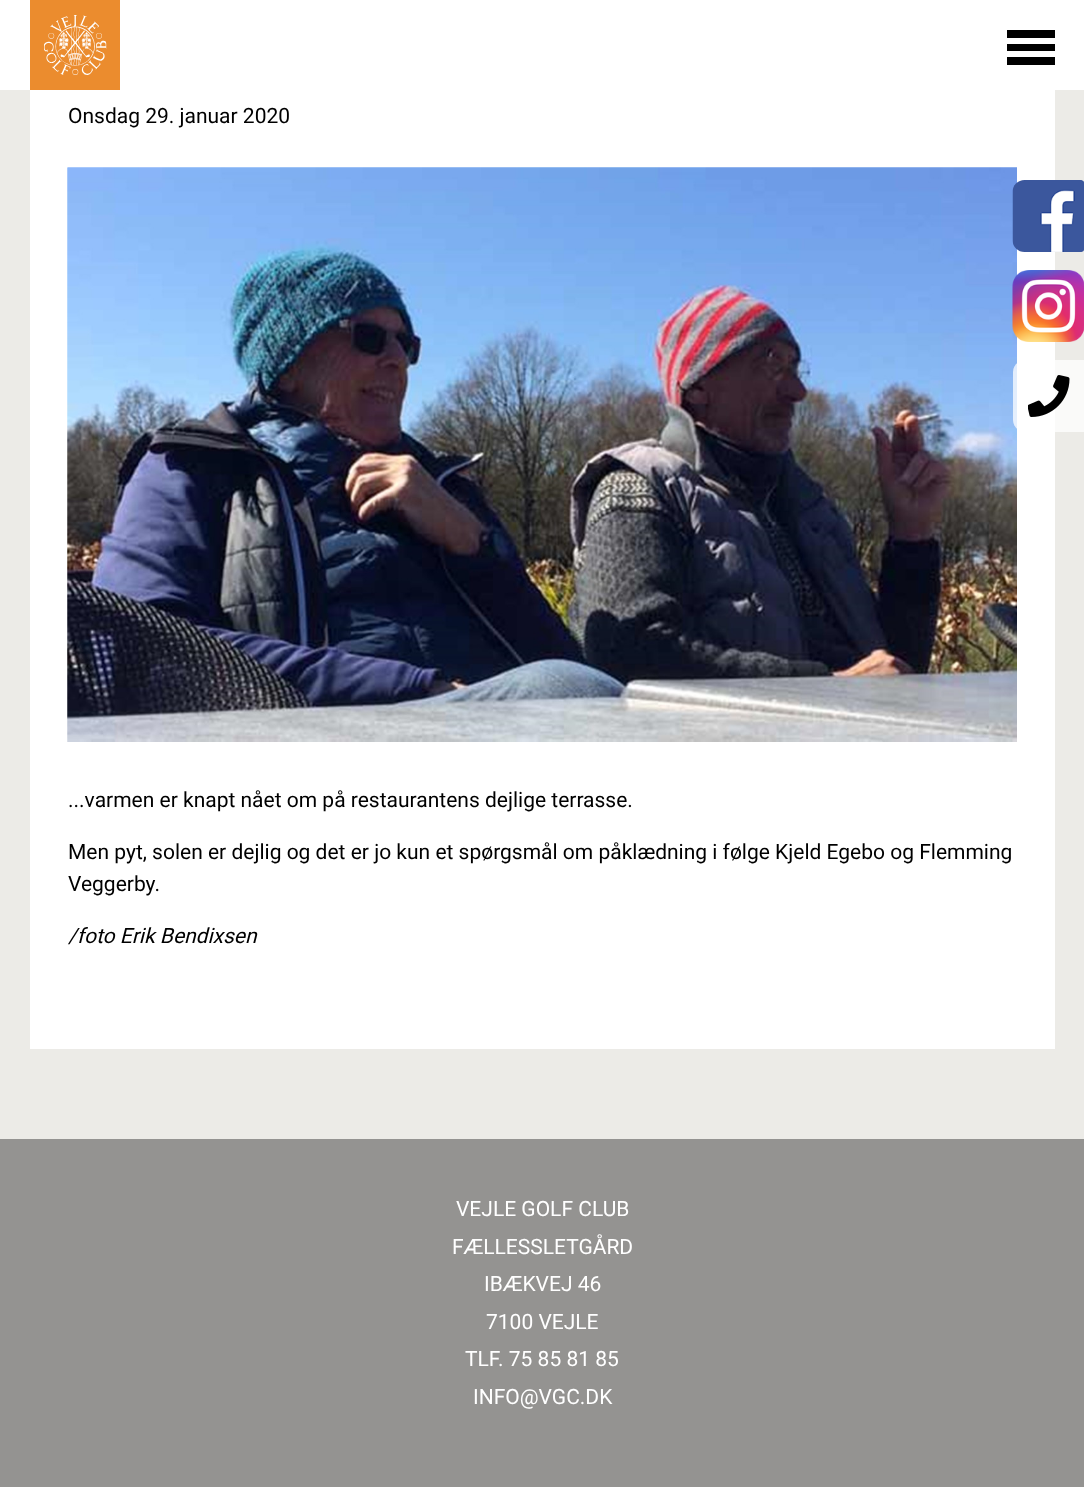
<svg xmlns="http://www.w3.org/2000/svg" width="1084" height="1487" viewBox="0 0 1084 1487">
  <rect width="100%" height="100%" fill="rgb(236,235,231)"/>
  <rect x="0" y="0" width="1084" height="90" fill="rgb(255,255,255)"/>
  <rect x="30" y="0" width="90" height="90" fill="rgb(235,140,46)"/>
  <image x="44" y="15" width="63" height="60" href="pic1.png"/>
  <rect x="1007" y="30" width="48" height="8" fill="rgb(0,0,0)"/>
  <rect x="1007" y="57" width="48" height="8" fill="rgb(0,0,0)"/>
  <rect x="1007" y="44" width="48" height="7" fill="rgb(0,0,0)"/>
  <rect x="30" y="90" width="1025" height="959" fill="rgb(255,255,255)"/>
  <image x="67" y="167" width="950" height="575" href="pic5.png"/>
  <image x="67" y="167" width="950" height="575" href="pic6.png"/>
  <image x="1012" y="180" width="72" height="72" href="pic2.png"/>
  <image x="1012" y="270" width="72" height="72" href="pic3.png"/>
  <path d="M1025 360H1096V432H1025C1018.5 432 1013 426.5 1013 420V372C1013 365.5 1018.5 360 1025 360Z" fill="rgba(255,255,255,0.75)"/>
  <image x="1028" y="375" width="42" height="42" href="pic4.png"/>
  <g font-family="Roboto" font-size="21" fill="rgb(0,0,0)">
    <text x="68" y="123">Onsdag 29. januar 2020</text>
    <text x="68" y="807">...varmen er knapt nået om på restaurantens dejlige terrasse.</text>
    <text>
      <tspan x="68" y="859">Men pyt, solen er dejlig og det er jo kun et spørgsmål om påklædning i følge Kjeld Egebo og Flemming</tspan>
      <tspan x="68" y="891">Veggerby.</tspan>
    </text>
  </g>
  <text x="68" y="943" font-family="Roboto" font-size="21" font-style="italic" fill="rgb(0,0,0)">/foto Erik Bendixsen</text>
  <rect x="0" y="1139" width="1084" height="348" fill="rgb(148,147,145)"/>
  <g font-family="Roboto" font-size="21" fill="rgb(255,255,255)">
    <text x="456" y="1216">VEJLE GOLF CLUB</text>
    <text x="452" y="1254">FÆLLESSLETGÅRD</text>
    <text x="484" y="1291">IBÆKVEJ 46</text>
    <text x="486" y="1329">7100 VEJLE</text>
    <text x="465" y="1366">TLF. 75 85 81 85</text>
    <text x="473" y="1404">INFO@VGC.DK</text>
  </g>
</svg>
